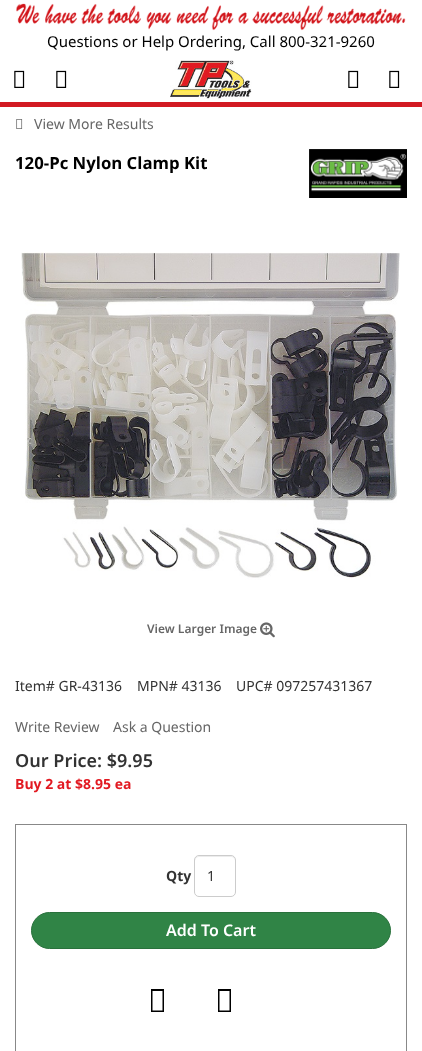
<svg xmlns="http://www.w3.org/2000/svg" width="422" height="1051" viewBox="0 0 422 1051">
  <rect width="100%" height="100%" fill="rgb(255,255,255)"/>
  <image x="16" y="3" width="390" height="28" href="pic1.png"/>
  <rect x="0" y="102" width="422" height="5" fill="rgb(210,26,34)"/>
  <text x="47" y="47" font-family="Noto Sans" font-size="15" fill="rgb(0,0,0)">Questions or Help Ordering, Call 800-321-9260</text>
  <image x="14" y="70" width="11" height="18" href="pic2.png"/>
  <image x="56" y="70" width="11" height="18" href="pic2.png"/>
  <image x="170" y="60" width="82" height="39" href="pic3.png"/>
  <image x="348" y="70" width="11" height="18" href="pic2.png"/>
  <image x="389" y="70" width="11" height="18" href="pic2.png"/>
  <image x="16" y="119" width="7" height="10" href="pic4.png"/>
  <text x="34" y="129" font-family="Noto Sans" font-size="14" fill="rgb(102,102,102)">View More Results</text>
  <text x="15" y="169" font-family="Noto Sans" font-size="16.75" font-weight="bold" fill="rgb(0,0,0)">120-Pc Nylon Clamp Kit</text>
  <image x="309" y="149" width="98" height="49" href="pic5.png"/>
  <image x="21" y="252" width="379" height="328" href="pic6.png"/>
  <text x="147" y="633" font-family="Noto Sans" font-size="12" font-weight="600" fill="rgb(102,102,102)">View Larger Image</text>
  <image x="260" y="622" width="15" height="16" href="pic7.png"/>
  <g font-family="Noto Sans" font-size="14" fill="rgb(51,51,51)">
    <text x="15" y="691">Item# GR-43136</text>
    <text x="137" y="691">MPN# 43136</text>
    <text x="236" y="691">UPC# 097257431367</text>
  </g>
  <g font-family="Noto Sans" font-size="14" fill="rgb(102,102,102)">
    <text x="15" y="732">Write Review</text>
    <text x="113" y="732">Ask a Question</text>
  </g>
  <text x="15" y="767" font-family="Noto Sans" font-size="18" font-weight="600" fill="rgb(51,51,51)">Our Price: $9.95</text>
  <text x="15" y="789" font-family="Noto Sans" font-size="14" font-weight="bold" fill="rgb(226,26,34)">Buy 2 at $8.95 ea</text>
  <rect x="15.5" y="824.5" width="391" height="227" fill="none" stroke="rgb(136,136,136)"/>
  <text x="166" y="881" font-family="Noto Sans" font-size="14" font-weight="bold" fill="rgb(51,51,51)">Qty</text>
  <path d="M199 857H231C233 857 235 859 235 861C235 855 230 856 226 856H204C200 856 195 855 195 861C195 859 197 857 199 857Z" fill="rgb(236,236,236)"/>
  <rect x="194.5" y="855.5" width="41" height="41" rx="4.5" fill="none" stroke="rgb(204,204,204)"/>
  <text x="207" y="881" font-family="Noto Sans" font-size="14" fill="rgb(51,51,51)">1</text>
  <rect x="31.5" y="912.5" width="359" height="36" rx="18" fill="rgb(48,132,70)" stroke="rgb(41,113,60)"/>
  <text x="166" y="936" font-family="Noto Sans" font-size="16" font-weight="600" fill="rgb(255,255,255)">Add To Cart</text>
  <path d="M151 1012V989H164V1012ZM152.5 1010.5H162.5V991H152.5Z" fill="rgb(0,0,0)"/>
  <path d="M218 1012V989H231V1012ZM219.5 1010.5H229.5V991H219.5Z" fill="rgb(0,0,0)"/>
</svg>
